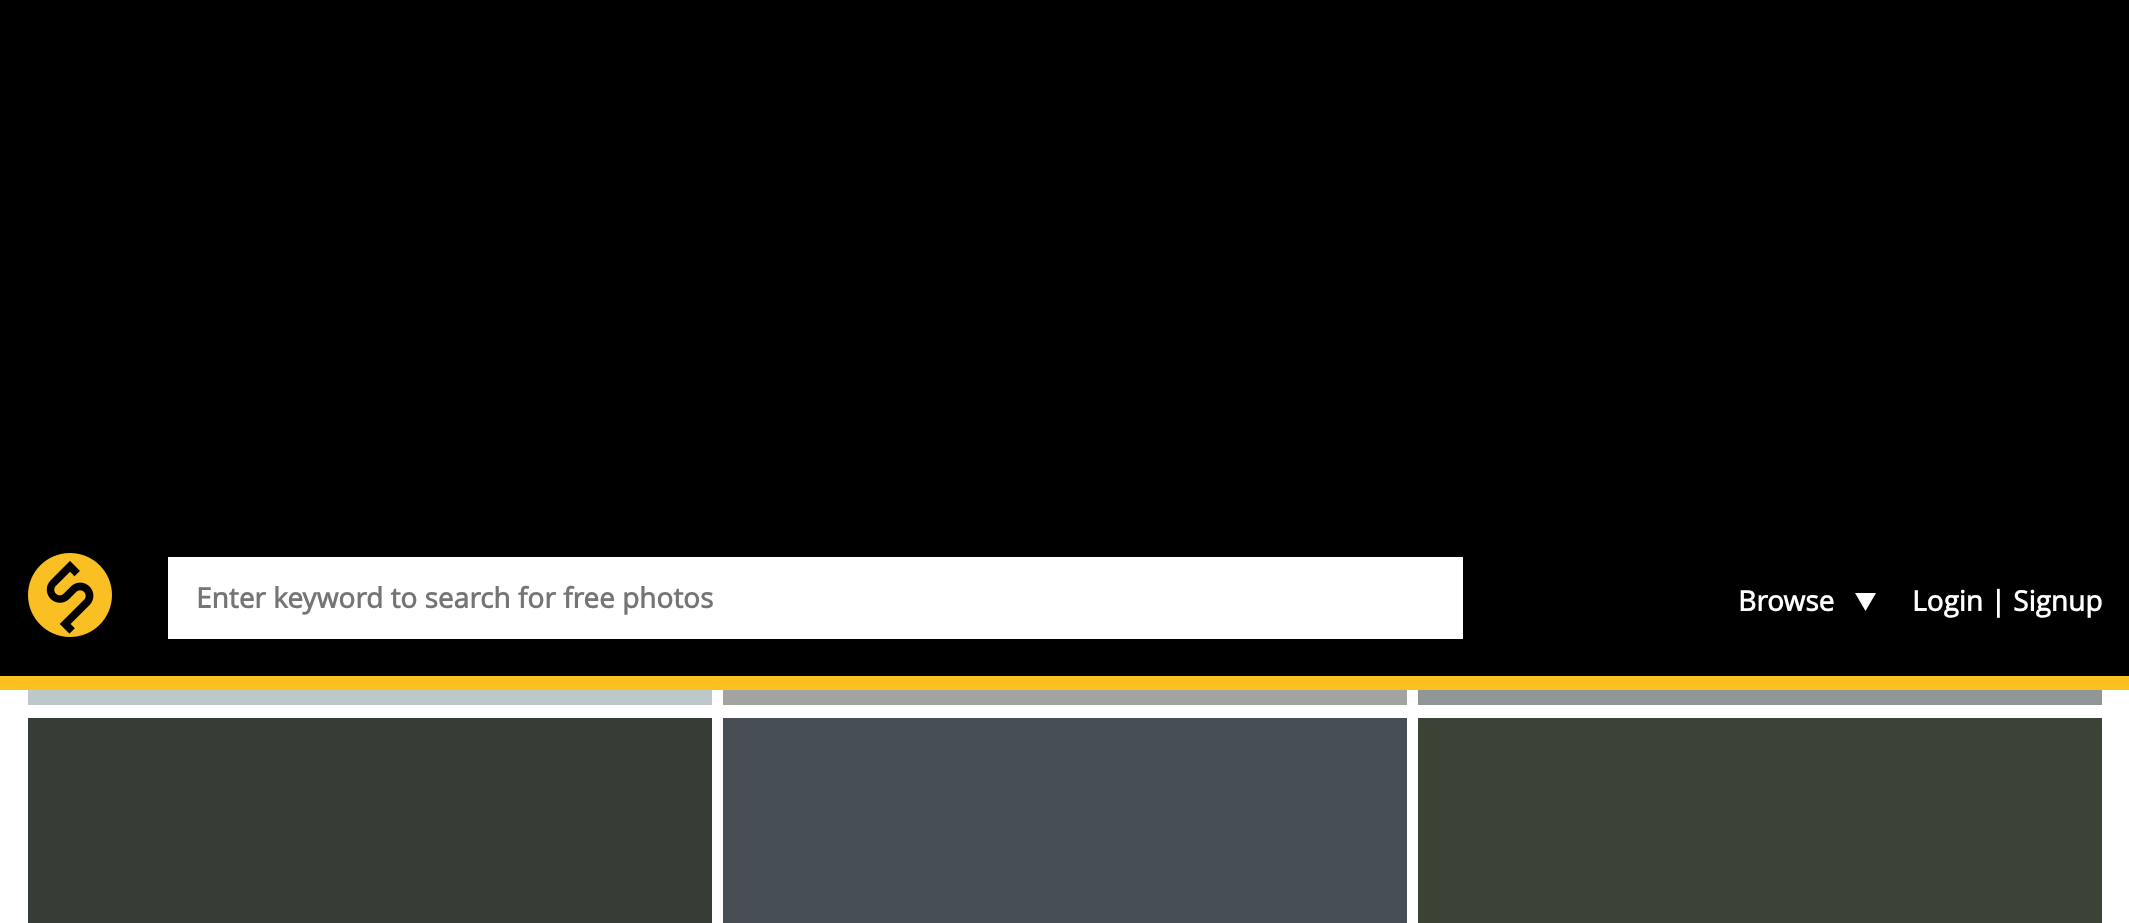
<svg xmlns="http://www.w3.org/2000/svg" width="2129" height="923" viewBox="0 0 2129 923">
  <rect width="100%" height="100%" fill="rgb(255,255,255)"/>
  <rect x="0" y="0" width="2129" height="676" fill="rgb(0,0,0)"/>
  <rect x="0" y="676" width="2129" height="14" fill="rgb(252,192,33)"/>
  <image x="28" y="553" width="84" height="84" href="pic1.png"/>
  <rect x="168" y="557" width="1295" height="82" fill="rgb(255,255,255)"/>
  <text x="196" y="608" font-family="Open Sans" font-size="28" font-weight="bold" fill="rgb(117,117,117)">Enter keyword to search for free photos</text>
  <text x="1738" y="611" font-family="Open Sans" font-size="28" font-weight="bold" fill="rgb(255,255,255)">Browse</text>
  <path d="M1855 593H1876L1865.5 611Z" fill="rgb(255,255,255)"/>
  <text x="1912" y="611" font-family="Open Sans" font-size="28" font-weight="bold" fill="rgb(255,255,255)">Login | Signup</text>
  <rect x="28" y="690" width="684" height="15" fill="rgb(188,200,201)"/>
  <rect x="723" y="690" width="684" height="15" fill="rgb(161,164,161)"/>
  <rect x="1418" y="690" width="684" height="15" fill="rgb(145,151,150)"/>
  <rect x="28" y="718" width="684" height="205" fill="rgb(54,61,54)"/>
  <rect x="723" y="718" width="684" height="205" fill="rgb(71,79,85)"/>
  <rect x="1418" y="718" width="684" height="205" fill="rgb(61,66,55)"/>
</svg>
